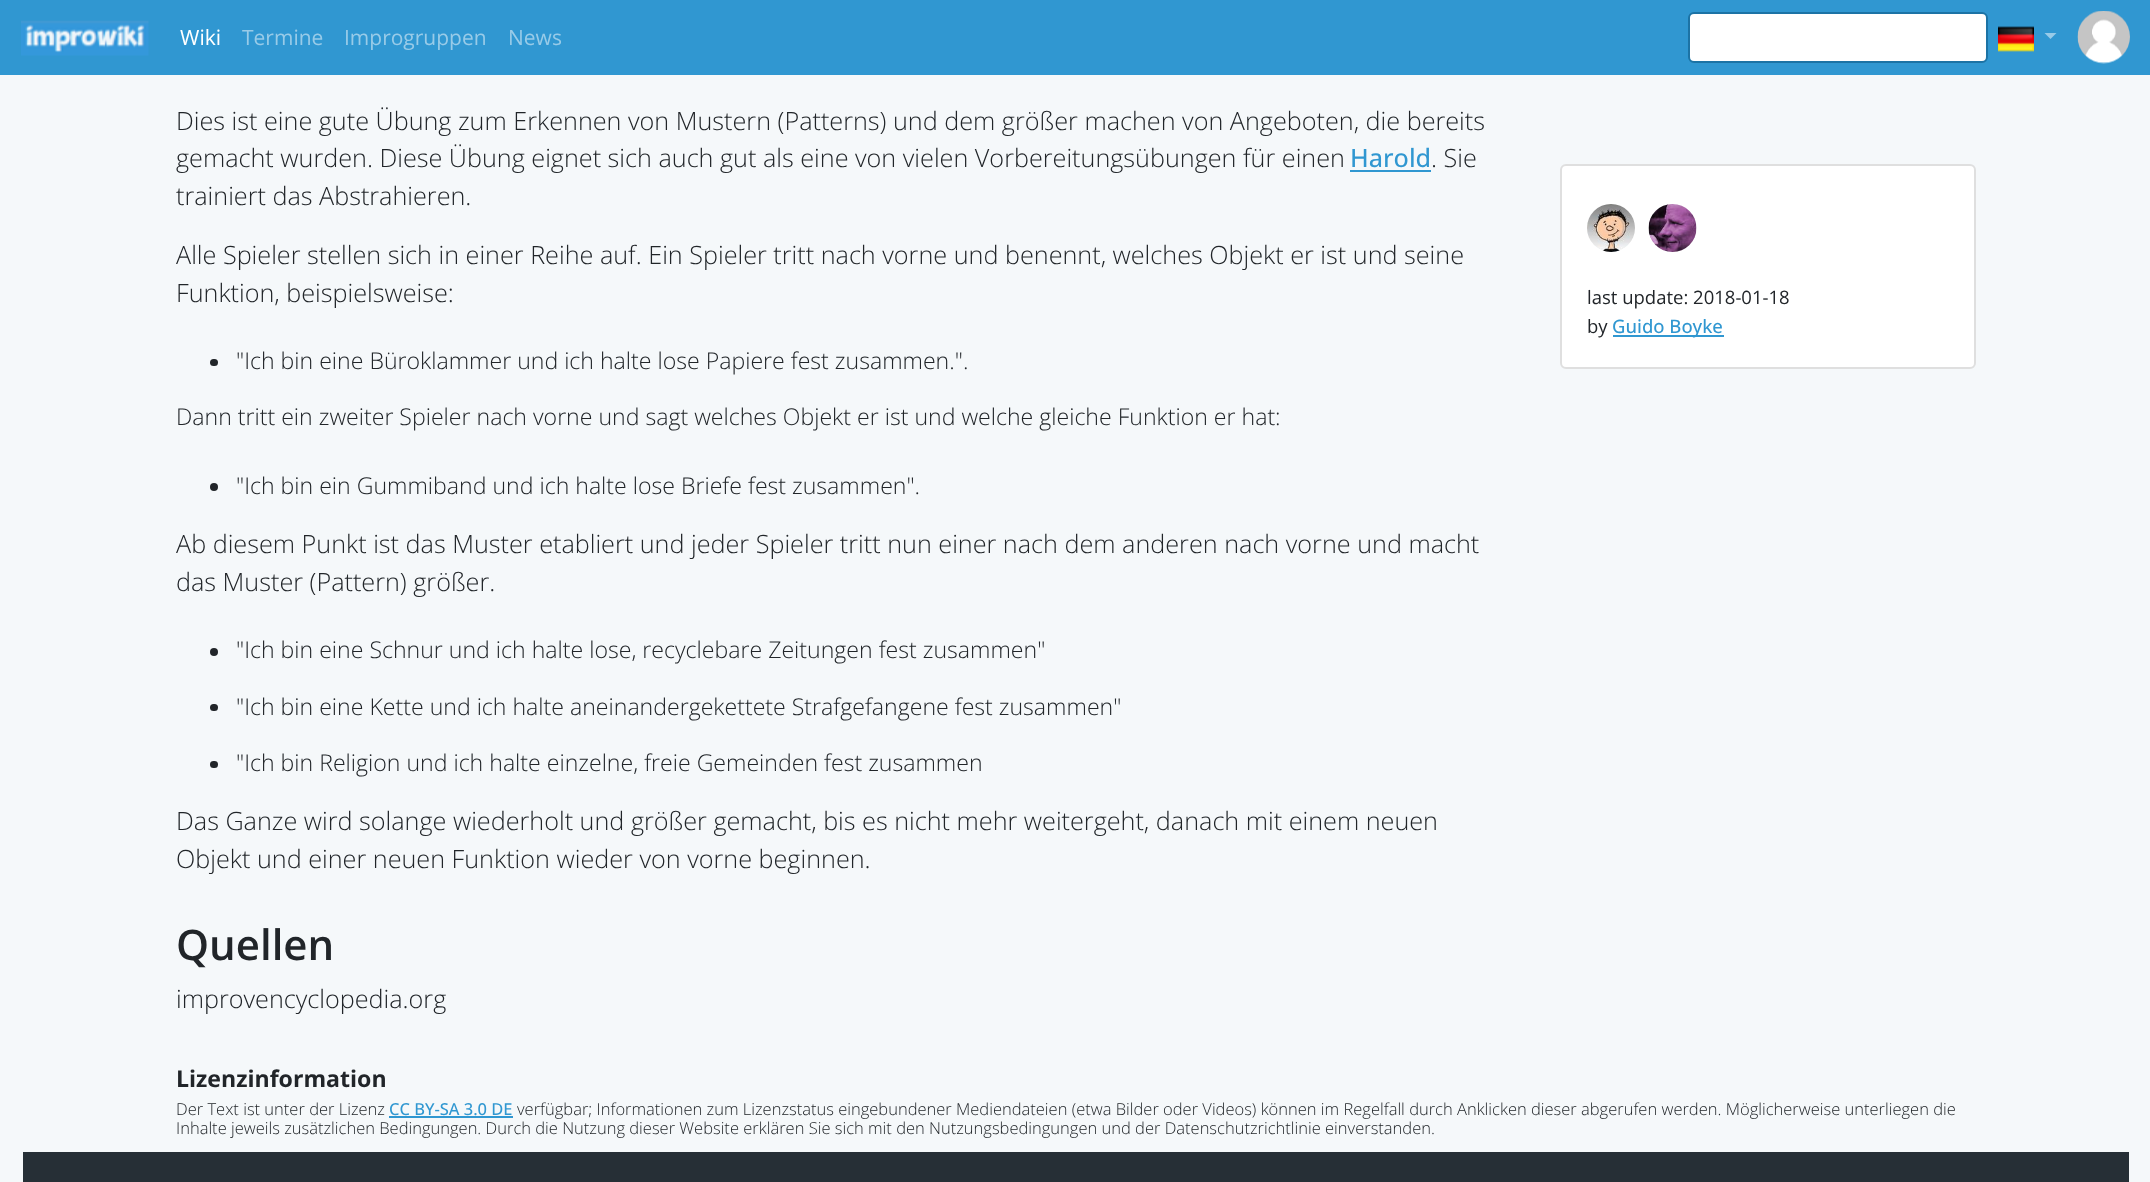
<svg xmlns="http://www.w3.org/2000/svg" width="2150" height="1182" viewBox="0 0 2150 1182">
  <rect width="100%" height="100%" fill="rgb(245,248,250)"/>
  <rect x="0" y="0" width="2150" height="75" fill="rgb(48,151,209)"/>
  <image x="21" y="20" width="128" height="36" href="pic1.png"/>
  <text x="180" y="45" font-family="Open Sans" font-size="21" fill="rgb(255,255,255)">Wiki</text>
  <g font-family="Open Sans" font-size="21" fill="rgb(152,203,232)">
    <text x="242" y="45">Termine</text>
    <text x="344" y="45">Improgruppen</text>
    <text x="508" y="45">News</text>
  </g>
  <rect x="1689" y="13" width="298" height="49" rx="5" fill="rgb(255,255,255)" stroke="rgb(28,115,165)" stroke-width="2"/>
  <image x="1998" y="26" width="36" height="26" href="pic2.png"/>
  <path d="M2044.5 33H2056.5L2050.5 39Z" fill="rgb(152,203,232)"/>
  <image x="2077" y="11" width="53" height="53" href="pic3.png"/>
  <g font-family="Open Sans" font-size="25.2" font-weight="300" fill="rgb(33,37,41)">
    <text>
      <tspan x="176" y="130">Dies ist eine gute Übung zum Erkennen von Mustern (Patterns) und dem größer machen von Angeboten, die bereits</tspan>
      <tspan x="176" y="167">gemacht wurden. Diese Übung eignet sich auch gut als eine von vielen Vorbereitungsübungen für einen</tspan>
    </text>
  </g>
  <text x="1350" y="167" font-family="Open Sans" font-size="25.2" font-weight="500" fill="rgb(48,151,209)">Harold</text>
  <rect x="1350" y="170" width="81" height="2" fill="rgb(48,151,209)"/>
  <g font-family="Open Sans" font-size="25.2" font-weight="300" fill="rgb(33,37,41)">
    <text x="1431" y="167">. Sie</text>
    <text x="176" y="205">trainiert das Abstrahieren.</text>
    <text>
      <tspan x="176" y="264">Alle Spieler stellen sich in einer Reihe auf. Ein Spieler tritt nach vorne und benennt, welches Objekt er ist und seine</tspan>
      <tspan x="176" y="302">Funktion, beispielsweise:</tspan>
    </text>
  </g>
  <rect x="210" y="359" width="8" height="7" rx="3.5" fill="rgb(33,37,41)"/>
  <g font-family="Open Sans" font-size="23.1" font-weight="300" fill="rgb(33,37,41)">
    <text x="236" y="369">"Ich bin eine Büroklammer und ich halte lose Papiere fest zusammen.".</text>
    <text x="176" y="425">Dann tritt ein zweiter Spieler nach vorne und sagt welches Objekt er ist und welche gleiche Funktion er hat:</text>
  </g>
  <circle cx="214" cy="487" r="4" fill="rgb(33,37,41)"/>
  <text x="236" y="494" font-family="Open Sans" font-size="23.1" font-weight="300" fill="rgb(33,37,41)">"Ich bin ein Gummiband und ich halte lose Briefe fest zusammen".</text>
  <g font-family="Open Sans" font-size="25.2" font-weight="300" fill="rgb(33,37,41)">
    <text>
      <tspan x="176" y="553">Ab diesem Punkt ist das Muster etabliert und jeder Spieler tritt nun einer nach dem anderen nach vorne und macht</tspan>
      <tspan x="176" y="591">das Muster (Pattern) größer.</tspan>
    </text>
  </g>
  <circle cx="214" cy="652" r="4" fill="rgb(33,37,41)"/>
  <text x="236" y="658" font-family="Open Sans" font-size="23.1" font-weight="300" fill="rgb(33,37,41)">"Ich bin eine Schnur und ich halte lose, recyclebare Zeitungen fest zusammen"</text>
  <rect x="210" y="704" width="8" height="7" rx="3.5" fill="rgb(33,37,41)"/>
  <text x="236" y="715" font-family="Open Sans" font-size="23.1" font-weight="300" fill="rgb(33,37,41)">"Ich bin eine Kette und ich halte aneinandergekettete Strafgefangene fest zusammen"</text>
  <rect x="210" y="761" width="8" height="7" rx="3.5" fill="rgb(33,37,41)"/>
  <text x="236" y="771" font-family="Open Sans" font-size="23.1" font-weight="300" fill="rgb(33,37,41)">"Ich bin Religion und ich halte einzelne, freie Gemeinden fest zusammen</text>
  <g font-family="Open Sans" font-size="25.2" font-weight="300" fill="rgb(33,37,41)">
    <text>
      <tspan x="176" y="830">Das Ganze wird solange wiederholt und größer gemacht, bis es nicht mehr weitergeht, danach mit einem neuen</tspan>
      <tspan x="176" y="868">Objekt und einer neuen Funktion wieder von vorne beginnen.</tspan>
    </text>
  </g>
  <text x="176" y="960" font-family="Open Sans" font-size="42" font-weight="600" fill="rgb(33,37,41)">Quellen</text>
  <text x="176" y="1008" font-family="Open Sans" font-size="25.2" font-weight="300" fill="rgb(33,37,41)">improvencyclopedia.org</text>
  <rect x="1561" y="165" width="414" height="203" rx="5" fill="rgb(255,255,255)" stroke="rgb(223,223,223)" stroke-width="2"/>
  <image x="1587" y="204" width="48" height="48" href="pic4.png"/>
  <image x="1648" y="204" width="49" height="48" href="pic5.png"/>
  <g font-family="Open Sans" font-size="18.5" fill="rgb(33,37,41)">
    <text>
      <tspan x="1587" y="304">last update: 2018-01-18</tspan>
      <tspan x="1587" y="333">by</tspan>
    </text>
  </g>
  <rect x="1613" y="335" width="111" height="2" fill="rgb(48,151,209)"/>
  <text x="1612" y="333" font-family="Open Sans" font-size="18.5" font-weight="500" fill="rgb(48,151,209)">Guido Boyke</text>
  <text x="176" y="1087" font-family="Open Sans" font-size="23.1" font-weight="bold" fill="rgb(33,37,41)">Lizenzinformation</text>
  <text x="176" y="1115" font-family="Open Sans" font-size="16.5" font-weight="300" fill="rgb(33,37,41)">Der Text ist unter der Lizenz</text>
  <text x="389" y="1115" font-family="Open Sans" font-size="16.5" font-weight="500" fill="rgb(48,151,209)">CC BY-SA 3.0 DE</text>
  <rect x="389" y="1116" width="124" height="2" fill="rgb(48,151,209)"/>
  <g font-family="Open Sans" font-size="16.5" font-weight="300" fill="rgb(33,37,41)">
    <text x="517" y="1115">verfügbar; Informationen zum Lizenzstatus eingebundener Mediendateien (etwa Bilder oder Videos) können im Regelfall durch Anklicken dieser abgerufen werden. Möglicherweise unterliegen die</text>
    <text x="176" y="1134">Inhalte jeweils zusätzlichen Bedingungen. Durch die Nutzung dieser Website erklären Sie sich mit den Nutzungsbedingungen und der Datenschutzrichtlinie einverstanden.</text>
  </g>
  <rect x="23" y="1152" width="2106" height="30" fill="rgb(38,47,54)"/>
</svg>
